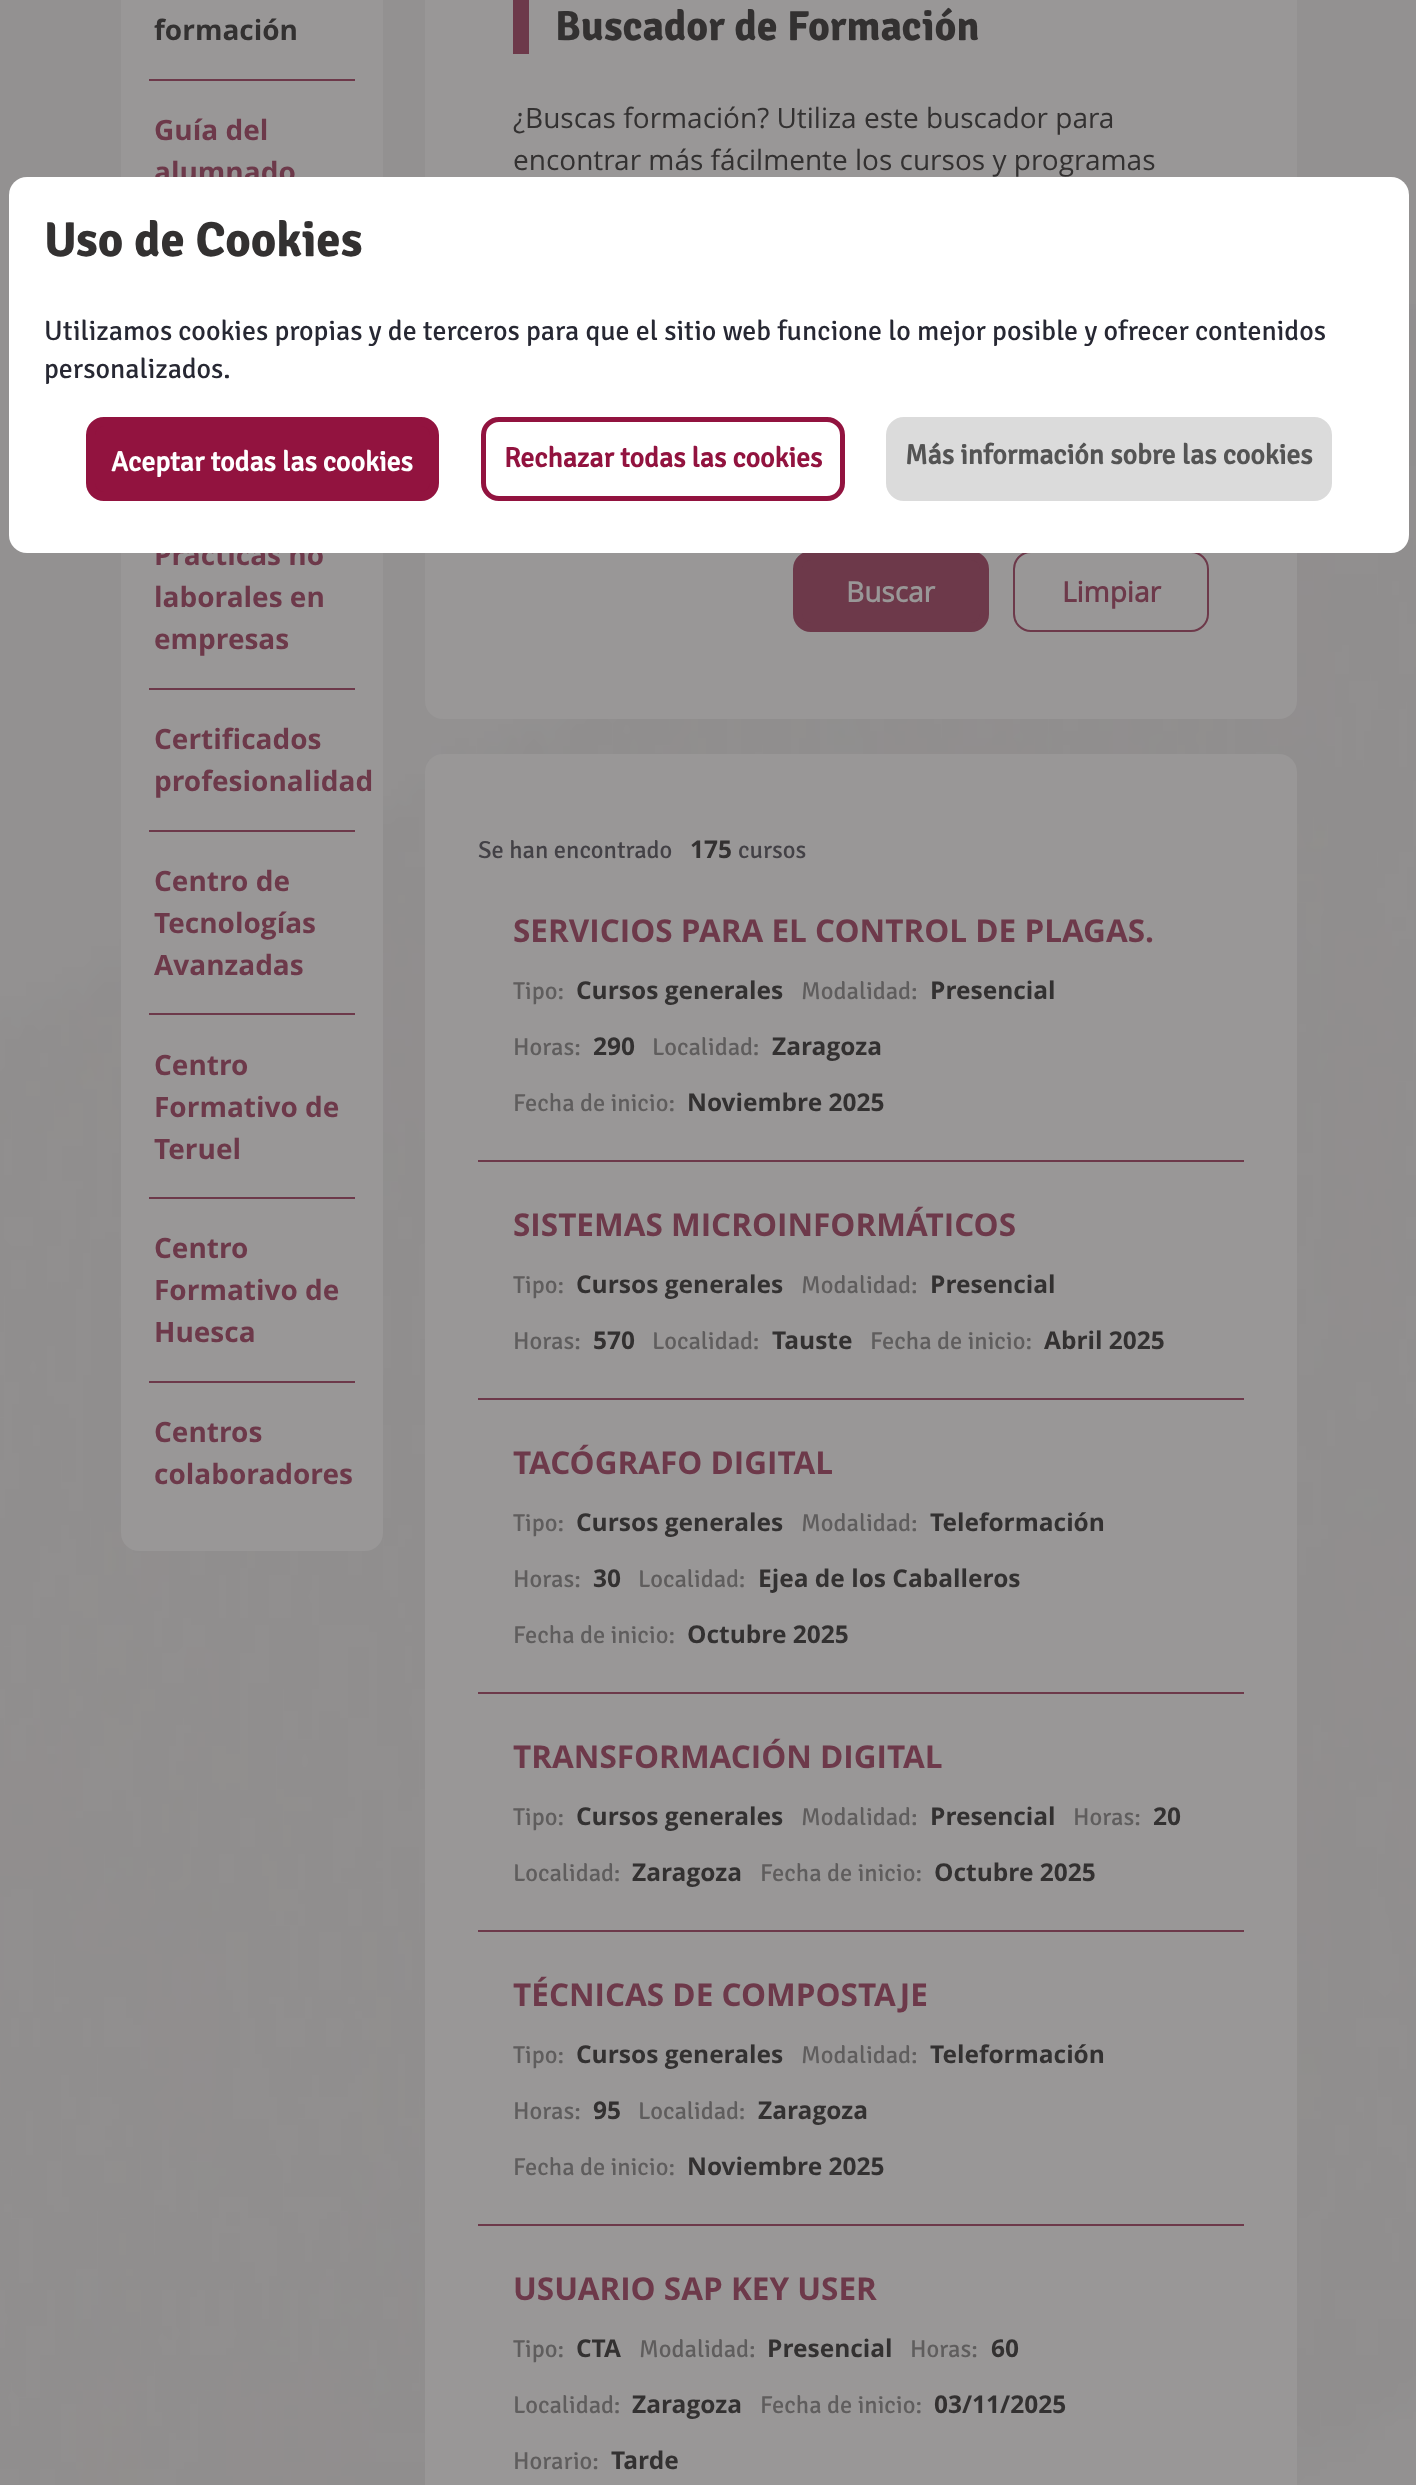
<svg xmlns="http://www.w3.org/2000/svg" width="1416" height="2485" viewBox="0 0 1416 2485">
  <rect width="100%" height="100%" fill="rgb(147,145,145)"/>
  <image x="0" y="304" width="1416" height="2181" href="pic1.png"/>
  <rect x="121" y="-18" width="262" height="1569" rx="18" fill="rgb(153,151,151)"/>
  <rect x="149" y="79" width="206" height="2" fill="rgb(109,57,74)"/>
  <text x="154" y="40" font-family="Open Sans" font-size="28" font-weight="bold" fill="rgb(51,49,49)">formación</text>
  <g font-family="Open Sans" font-size="28" font-weight="bold" fill="rgb(109,57,74)">
    <text>
      <tspan x="154" y="140">Guía del</tspan>
      <tspan x="154" y="182">alumnado</tspan>
    </text>
  </g>
  <rect x="149" y="688" width="206" height="2" fill="rgb(109,57,74)"/>
  <g font-family="Open Sans" font-size="28" font-weight="bold" fill="rgb(109,57,74)">
    <text>
      <tspan x="154" y="565">Prácticas no</tspan>
      <tspan x="154" y="607">laborales en</tspan>
      <tspan x="154" y="649">empresas</tspan>
    </text>
  </g>
  <rect x="149" y="830" width="206" height="2" fill="rgb(109,57,74)"/>
  <g font-family="Open Sans" font-size="28" font-weight="bold" fill="rgb(109,57,74)">
    <text>
      <tspan x="154" y="749">Certificados</tspan>
      <tspan x="154" y="791">profesionalidad</tspan>
    </text>
  </g>
  <rect x="149" y="1013" width="206" height="2" fill="rgb(109,57,74)"/>
  <g font-family="Open Sans" font-size="28" font-weight="bold" fill="rgb(109,57,74)">
    <text>
      <tspan x="154" y="891">Centro de</tspan>
      <tspan x="154" y="933">Tecnologías</tspan>
      <tspan x="154" y="975">Avanzadas</tspan>
    </text>
  </g>
  <rect x="149" y="1197" width="206" height="2" fill="rgb(109,57,74)"/>
  <g font-family="Open Sans" font-size="28" font-weight="bold" fill="rgb(109,57,74)">
    <text>
      <tspan x="154" y="1075">Centro</tspan>
      <tspan x="154" y="1117">Formativo de</tspan>
      <tspan x="154" y="1159">Teruel</tspan>
    </text>
  </g>
  <rect x="149" y="1381" width="206" height="2" fill="rgb(109,57,74)"/>
  <g font-family="Open Sans" font-size="28" font-weight="bold" fill="rgb(109,57,74)">
    <text>
      <tspan x="154" y="1258">Centro</tspan>
      <tspan x="154" y="1300">Formativo de</tspan>
      <tspan x="154" y="1342">Huesca</tspan>
    </text>
    <text>
      <tspan x="154" y="1442">Centros</tspan>
      <tspan x="154" y="1484">colaboradores</tspan>
    </text>
  </g>
  <rect x="425" y="-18" width="872" height="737" rx="18" fill="rgb(153,151,151)"/>
  <rect x="513" y="0" width="16" height="54" fill="rgb(109,57,74)"/>
  <text x="555" y="40" font-family="Signika" font-size="42" font-weight="bold" fill="rgb(51,49,49)">Buscador de Formación</text>
  <g font-family="Open Sans" font-size="28" fill="rgb(51,49,49)">
    <text>
      <tspan x="513" y="128">¿Buscas formación? Utiliza este buscador para</tspan>
      <tspan x="513" y="170">encontrar más fácilmente los cursos y programas</tspan>
    </text>
  </g>
  <rect x="797.5" y="555.5" width="187" height="72" rx="13.5" fill="rgb(109,57,74)" stroke="rgb(109,57,74)" stroke-width="9"/>
  <text x="846" y="602" font-family="'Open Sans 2'" font-size="28" font-weight="bold" fill="rgb(153,151,151)">Buscar</text>
  <rect x="1014" y="552" width="194" height="79" rx="17" fill="none" stroke="rgb(109,57,74)" stroke-width="2"/>
  <text x="1062" y="602" font-family="'Open Sans 2'" font-size="28" font-weight="bold" fill="rgb(109,57,74)">Limpiar</text>
  <rect x="425" y="754" width="872" height="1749" rx="18" fill="rgb(153,151,151)"/>
  <text x="478" y="858" font-family="Signika" font-size="24.5" fill="rgb(67,65,70)">Se han encontrado</text>
  <text x="690" y="858" font-family="Open Sans" font-size="24.5" font-weight="bold" fill="rgb(51,49,49)">175</text>
  <text x="738" y="858" font-family="Signika" font-size="24.5" fill="rgb(67,65,70)">cursos</text>
  <rect x="478" y="1160" width="766" height="2" fill="rgb(109,57,74)"/>
  <text x="513" y="942" font-family="Open Sans" font-size="31.5" font-weight="bold" fill="rgb(109,57,74)">SERVICIOS PARA EL CONTROL DE PLAGAS.</text>
  <text x="513" y="999" font-family="Signika" font-size="24.5" fill="rgb(95,93,93)">Tipo:</text>
  <text x="576" y="999" font-family="Open Sans" font-size="24.5" font-weight="bold" fill="rgb(51,49,49)">Cursos generales</text>
  <text x="801" y="999" font-family="Signika" font-size="24.5" fill="rgb(95,93,93)">Modalidad:</text>
  <text x="930" y="999" font-family="Open Sans" font-size="24.5" font-weight="bold" fill="rgb(51,49,49)">Presencial</text>
  <text x="513" y="1055" font-family="Signika" font-size="24.5" fill="rgb(95,93,93)">Horas:</text>
  <text x="593" y="1055" font-family="Open Sans" font-size="24.5" font-weight="bold" fill="rgb(51,49,49)">290</text>
  <text x="652" y="1055" font-family="Signika" font-size="24.5" fill="rgb(95,93,93)">Localidad:</text>
  <text x="772" y="1055" font-family="Open Sans" font-size="24.5" font-weight="bold" fill="rgb(51,49,49)">Zaragoza</text>
  <text x="513" y="1111" font-family="Signika" font-size="24.5" fill="rgb(95,93,93)">Fecha de inicio:</text>
  <text x="687" y="1111" font-family="Open Sans" font-size="24.5" font-weight="bold" fill="rgb(51,49,49)">Noviembre 2025</text>
  <rect x="478" y="1398" width="766" height="2" fill="rgb(109,57,74)"/>
  <text x="513" y="1236" font-family="Open Sans" font-size="31.5" font-weight="bold" fill="rgb(109,57,74)">SISTEMAS MICROINFORMÁTICOS</text>
  <text x="513" y="1293" font-family="Signika" font-size="24.5" fill="rgb(95,93,93)">Tipo:</text>
  <text x="576" y="1293" font-family="Open Sans" font-size="24.5" font-weight="bold" fill="rgb(51,49,49)">Cursos generales</text>
  <text x="801" y="1293" font-family="Signika" font-size="24.5" fill="rgb(95,93,93)">Modalidad:</text>
  <text x="930" y="1293" font-family="Open Sans" font-size="24.5" font-weight="bold" fill="rgb(51,49,49)">Presencial</text>
  <text x="513" y="1349" font-family="Signika" font-size="24.5" fill="rgb(95,93,93)">Horas:</text>
  <text x="593" y="1349" font-family="Open Sans" font-size="24.5" font-weight="bold" fill="rgb(51,49,49)">570</text>
  <text x="652" y="1349" font-family="Signika" font-size="24.5" fill="rgb(95,93,93)">Localidad:</text>
  <text x="772" y="1349" font-family="Open Sans" font-size="24.5" font-weight="bold" fill="rgb(51,49,49)">Tauste</text>
  <text x="870" y="1349" font-family="Signika" font-size="24.5" fill="rgb(95,93,93)">Fecha de inicio:</text>
  <text x="1044" y="1349" font-family="Open Sans" font-size="24.5" font-weight="bold" fill="rgb(51,49,49)">Abril 2025</text>
  <rect x="478" y="1692" width="766" height="2" fill="rgb(109,57,74)"/>
  <text x="513" y="1474" font-family="Open Sans" font-size="31.5" font-weight="bold" fill="rgb(109,57,74)">TACÓGRAFO DIGITAL</text>
  <text x="513" y="1531" font-family="Signika" font-size="24.5" fill="rgb(95,93,93)">Tipo:</text>
  <text x="576" y="1531" font-family="Open Sans" font-size="24.5" font-weight="bold" fill="rgb(51,49,49)">Cursos generales</text>
  <text x="801" y="1531" font-family="Signika" font-size="24.5" fill="rgb(95,93,93)">Modalidad:</text>
  <text x="930" y="1531" font-family="Open Sans" font-size="24.5" font-weight="bold" fill="rgb(51,49,49)">Teleformación</text>
  <text x="513" y="1587" font-family="Signika" font-size="24.5" fill="rgb(95,93,93)">Horas:</text>
  <text x="593" y="1587" font-family="Open Sans" font-size="24.5" font-weight="bold" fill="rgb(51,49,49)">30</text>
  <text x="638" y="1587" font-family="Signika" font-size="24.5" fill="rgb(95,93,93)">Localidad:</text>
  <text x="758" y="1587" font-family="Open Sans" font-size="24.5" font-weight="bold" fill="rgb(51,49,49)">Ejea de los Caballeros</text>
  <text x="513" y="1643" font-family="Signika" font-size="24.5" fill="rgb(95,93,93)">Fecha de inicio:</text>
  <text x="687" y="1643" font-family="Open Sans" font-size="24.5" font-weight="bold" fill="rgb(51,49,49)">Octubre 2025</text>
  <rect x="478" y="1930" width="766" height="2" fill="rgb(109,57,74)"/>
  <text x="513" y="1768" font-family="Open Sans" font-size="31.5" font-weight="bold" fill="rgb(109,57,74)">TRANSFORMACIÓN DIGITAL</text>
  <text x="513" y="1825" font-family="Signika" font-size="24.5" fill="rgb(95,93,93)">Tipo:</text>
  <text x="576" y="1825" font-family="Open Sans" font-size="24.5" font-weight="bold" fill="rgb(51,49,49)">Cursos generales</text>
  <text x="801" y="1825" font-family="Signika" font-size="24.5" fill="rgb(95,93,93)">Modalidad:</text>
  <text x="930" y="1825" font-family="Open Sans" font-size="24.5" font-weight="bold" fill="rgb(51,49,49)">Presencial</text>
  <text x="1073" y="1825" font-family="Signika" font-size="24.5" fill="rgb(95,93,93)">Horas:</text>
  <text x="1153" y="1825" font-family="Open Sans" font-size="24.5" font-weight="bold" fill="rgb(51,49,49)">20</text>
  <text x="513" y="1881" font-family="Signika" font-size="24.5" fill="rgb(95,93,93)">Localidad:</text>
  <text x="632" y="1881" font-family="Open Sans" font-size="24.5" font-weight="bold" fill="rgb(51,49,49)">Zaragoza</text>
  <text x="760" y="1881" font-family="Signika" font-size="24.5" fill="rgb(95,93,93)">Fecha de inicio:</text>
  <text x="934" y="1881" font-family="Open Sans" font-size="24.5" font-weight="bold" fill="rgb(51,49,49)">Octubre 2025</text>
  <rect x="478" y="2224" width="766" height="2" fill="rgb(109,57,74)"/>
  <text x="513" y="2006" font-family="Open Sans" font-size="31.5" font-weight="bold" fill="rgb(109,57,74)">TÉCNICAS DE COMPOSTAJE</text>
  <text x="513" y="2063" font-family="Signika" font-size="24.5" fill="rgb(95,93,93)">Tipo:</text>
  <text x="576" y="2063" font-family="Open Sans" font-size="24.5" font-weight="bold" fill="rgb(51,49,49)">Cursos generales</text>
  <text x="801" y="2063" font-family="Signika" font-size="24.5" fill="rgb(95,93,93)">Modalidad:</text>
  <text x="930" y="2063" font-family="Open Sans" font-size="24.5" font-weight="bold" fill="rgb(51,49,49)">Teleformación</text>
  <text x="513" y="2119" font-family="Signika" font-size="24.5" fill="rgb(95,93,93)">Horas:</text>
  <text x="593" y="2119" font-family="Open Sans" font-size="24.5" font-weight="bold" fill="rgb(51,49,49)">95</text>
  <text x="638" y="2119" font-family="Signika" font-size="24.5" fill="rgb(95,93,93)">Localidad:</text>
  <text x="758" y="2119" font-family="Open Sans" font-size="24.5" font-weight="bold" fill="rgb(51,49,49)">Zaragoza</text>
  <text x="513" y="2175" font-family="Signika" font-size="24.5" fill="rgb(95,93,93)">Fecha de inicio:</text>
  <text x="687" y="2175" font-family="Open Sans" font-size="24.5" font-weight="bold" fill="rgb(51,49,49)">Noviembre 2025</text>
  <text x="513" y="2300" font-family="Open Sans" font-size="31.5" font-weight="bold" fill="rgb(109,57,74)">USUARIO SAP KEY USER</text>
  <text x="513" y="2357" font-family="Signika" font-size="24.5" fill="rgb(95,93,93)">Tipo:</text>
  <text x="576" y="2357" font-family="Open Sans" font-size="24.5" font-weight="bold" fill="rgb(51,49,49)">CTA</text>
  <text x="639" y="2357" font-family="Signika" font-size="24.5" fill="rgb(95,93,93)">Modalidad:</text>
  <text x="767" y="2357" font-family="Open Sans" font-size="24.5" font-weight="bold" fill="rgb(51,49,49)">Presencial</text>
  <text x="910" y="2357" font-family="Signika" font-size="24.5" fill="rgb(95,93,93)">Horas:</text>
  <text x="991" y="2357" font-family="Open Sans" font-size="24.5" font-weight="bold" fill="rgb(51,49,49)">60</text>
  <text x="513" y="2413" font-family="Signika" font-size="24.5" fill="rgb(95,93,93)">Localidad:</text>
  <text x="632" y="2413" font-family="Open Sans" font-size="24.5" font-weight="bold" fill="rgb(51,49,49)">Zaragoza</text>
  <text x="760" y="2413" font-family="Signika" font-size="24.5" fill="rgb(95,93,93)">Fecha de inicio:</text>
  <text x="934" y="2413" font-family="Open Sans" font-size="24.5" font-weight="bold" fill="rgb(51,49,49)">03/11/2025</text>
  <text x="513" y="2469" font-family="Signika" font-size="24.5" fill="rgb(95,93,93)">Horario:</text>
  <text x="611" y="2469" font-family="Open Sans" font-size="24.5" font-weight="bold" fill="rgb(51,49,49)">Tarde</text>
  <rect x="9" y="177" width="1400" height="376" rx="18" fill="rgb(255,255,255)"/>
  <text x="44" y="256" font-family="Signika" font-size="49" font-weight="bold" fill="rgb(51,49,49)">Uso de Cookies</text>
  <g font-family="Signika" font-size="28" fill="rgb(39,40,51)">
    <text>
      <tspan x="44" y="340">Utilizamos cookies propias y de terceros para que el sitio web funcione lo mejor posible y ofrecer contenidos</tspan>
      <tspan x="44" y="378">personalizados.</tspan>
    </text>
  </g>
  <rect x="90.5" y="421.5" width="344" height="75" rx="13.5" fill="rgb(146,19,63)" stroke="rgb(146,19,63)" stroke-width="9"/>
  <text x="111" y="471" font-family="'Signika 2'" font-size="28" font-weight="bold" fill="rgb(255,255,255)">Aceptar todas las cookies</text>
  <rect x="483.5" y="419.5" width="359" height="79" rx="15.5" fill="none" stroke="rgb(146,19,63)" stroke-width="5"/>
  <text x="504" y="467" font-family="'Signika 2'" font-size="28" font-weight="bold" fill="rgb(146,19,63)">Rechazar todas las cookies</text>
  <rect x="887" y="418" width="444" height="82" rx="17" fill="rgb(219,219,219)" stroke="rgb(219,219,219)" stroke-width="2"/>
  <text x="905" y="464" font-family="'Signika 2'" font-size="28" font-weight="bold" fill="rgb(84,84,84)">Más información sobre las cookies</text>
</svg>
